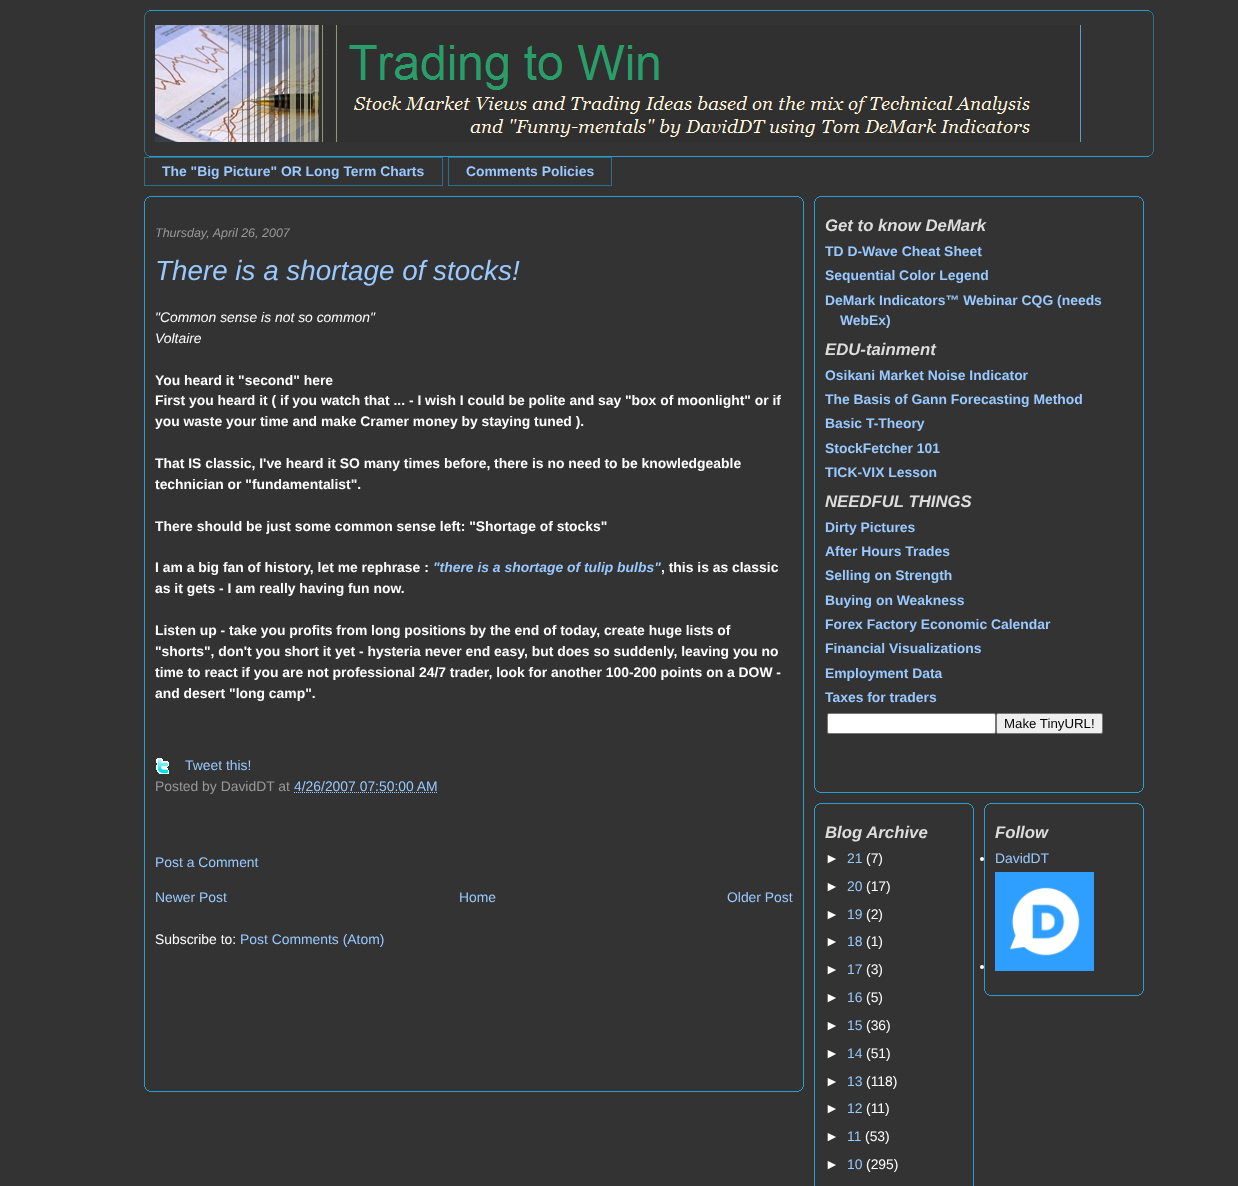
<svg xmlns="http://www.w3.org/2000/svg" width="1238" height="1186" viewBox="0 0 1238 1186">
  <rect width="100%" height="100%" fill="rgb(51,51,51)"/>
  <rect x="149" y="10" width="1000" height="1" fill="rgb(43,156,206)"/>
  <rect x="1149" y="11" width="2" height="1" fill="rgb(45,110,137)"/>
  <rect x="147" y="11" width="2" height="1" fill="rgb(45,110,137)"/>
  <rect x="1151" y="12" width="1" height="1" fill="rgb(45,110,137)"/>
  <rect x="146" y="12" width="1" height="1" fill="rgb(45,110,137)"/>
  <rect x="1152" y="13" width="1" height="2" fill="rgb(45,110,137)"/>
  <rect x="145" y="13" width="1" height="2" fill="rgb(45,110,137)"/>
  <rect x="1153" y="15" width="1" height="137" fill="rgb(45,110,137)"/>
  <rect x="144" y="15" width="1" height="137" fill="rgb(45,110,137)"/>
  <image x="155" y="25" width="926" height="117" href="pic1.png"/>
  <rect x="1152" y="152" width="1" height="2" fill="rgb(45,110,137)"/>
  <rect x="145" y="152" width="1" height="2" fill="rgb(45,110,137)"/>
  <rect x="1151" y="154" width="1" height="1" fill="rgb(45,110,137)"/>
  <rect x="146" y="154" width="1" height="1" fill="rgb(45,110,137)"/>
  <rect x="1149" y="155" width="2" height="1" fill="rgb(45,110,137)"/>
  <rect x="147" y="155" width="2" height="1" fill="rgb(45,110,137)"/>
  <rect x="149" y="156" width="1000" height="1" fill="rgb(43,156,206)"/>
  <rect x="144.5" y="157.5" width="298" height="28" fill="none" stroke="rgb(45,110,137)"/>
  <text x="162" y="176" font-family="Liberation Sans" font-size="13.9" font-weight="bold" fill="rgb(153,201,255)">The "Big Picture" OR Long Term Charts</text>
  <rect x="448.5" y="157.5" width="163" height="28" fill="none" stroke="rgb(45,110,137)"/>
  <text x="466" y="176" font-family="Liberation Sans" font-size="13.9" font-weight="bold" fill="rgb(153,201,255)">Comments Policies</text>
  <rect x="149" y="196" width="650" height="1" fill="rgb(43,156,206)"/>
  <rect x="799" y="197" width="2" height="1" fill="rgb(43,156,206)"/>
  <rect x="147" y="197" width="2" height="1" fill="rgb(43,156,206)"/>
  <rect x="801" y="198" width="1" height="1" fill="rgb(43,156,206)"/>
  <rect x="146" y="198" width="1" height="1" fill="rgb(43,156,206)"/>
  <rect x="802" y="199" width="1" height="2" fill="rgb(43,156,206)"/>
  <rect x="145" y="199" width="1" height="2" fill="rgb(43,156,206)"/>
  <rect x="803" y="201" width="1" height="886" fill="rgb(43,156,206)"/>
  <rect x="144" y="201" width="1" height="886" fill="rgb(43,156,206)"/>
  <text x="155" y="237" font-family="Liberation Sans" font-size="12.5" font-style="italic" fill="rgb(153,153,153)">Thursday, April 26, 2007</text>
  <text x="155" y="280" font-family="Liberation Sans" font-size="27.8" font-style="italic" fill="rgb(153,201,255)">There is a shortage of stocks!</text>
  <g font-family="Liberation Sans" font-size="13.9" font-style="italic" fill="rgb(255,255,255)">
    <text>
      <tspan x="155" y="322">"Common sense is not so common"</tspan>
      <tspan x="155" y="343">Voltaire</tspan>
    </text>
  </g>
  <g font-family="Liberation Sans" font-size="13.9" font-weight="bold" fill="rgb(255,255,255)">
    <text>
      <tspan x="155" y="385">You heard it "second" here</tspan>
      <tspan x="155" y="405">First you heard it ( if you watch that ... - I wish I could be polite and say "box of moonlight" or if</tspan>
      <tspan x="155" y="426">you waste your time and make Cramer money by staying tuned ).</tspan>
    </text>
    <text>
      <tspan x="155" y="468">That IS classic, I've heard it SO many times before, there is no need to be knowledgeable</tspan>
      <tspan x="155" y="489">technician or "fundamentalist".</tspan>
    </text>
    <text x="155" y="531">There should be just some common sense left: "Shortage of stocks"</text>
    <text x="155" y="572">I am a big fan of history, let me rephrase :</text>
  </g>
  <text x="433" y="572" font-family="Liberation Sans" font-size="13.9" font-weight="bold" font-style="italic" fill="rgb(153,201,255)">"there is a shortage of tulip bulbs"</text>
  <g font-family="Liberation Sans" font-size="13.9" font-weight="bold" fill="rgb(255,255,255)">
    <text x="661" y="572">, this is as classic</text>
    <text x="155" y="593">as it gets - I am really having fun now.</text>
    <text>
      <tspan x="155" y="635">Listen up - take you profits from long positions by the end of today, create huge lists of</tspan>
      <tspan x="155" y="656">"shorts", don't you short it yet - hysteria never end easy, but does so suddenly, leaving you no</tspan>
      <tspan x="155" y="677">time to react if you are not professional 24/7 trader, look for another 100-200 points on a DOW -</tspan>
      <tspan x="155" y="698">and desert "long camp".</tspan>
    </text>
  </g>
  <image x="156" y="758" width="13" height="16" href="pic2.png"/>
  <text x="185" y="770" font-family="Liberation Sans" font-size="13.9" fill="rgb(153,201,255)">Tweet this!</text>
  <text x="155" y="791" font-family="Liberation Sans" font-size="13.9" fill="rgb(153,153,153)">Posted by DavidDT at</text>
  <text x="294" y="791" font-family="Liberation Sans" font-size="13.9" fill="rgb(153,201,255)">4/26/2007 07:50:00 AM</text>
  <path d="M294 792.5H437.5" fill="none" stroke="rgb(153,201,255)" stroke-dasharray="1 1"/>
  <g font-family="Liberation Sans" font-size="13.9" fill="rgb(153,201,255)">
    <text x="155" y="867">Post a Comment</text>
    <text x="155" y="902">Newer Post</text>
    <text x="459" y="902">Home</text>
    <text x="727" y="902">Older Post</text>
  </g>
  <text x="155" y="944" font-family="Liberation Sans" font-size="13.9" fill="rgb(255,255,255)">Subscribe to:</text>
  <text x="240" y="944" font-family="Liberation Sans" font-size="13.9" fill="rgb(153,201,255)">Post Comments (Atom)</text>
  <rect x="802" y="1087" width="1" height="2" fill="rgb(43,156,206)"/>
  <rect x="145" y="1087" width="1" height="2" fill="rgb(43,156,206)"/>
  <rect x="801" y="1089" width="1" height="1" fill="rgb(43,156,206)"/>
  <rect x="146" y="1089" width="1" height="1" fill="rgb(43,156,206)"/>
  <rect x="799" y="1090" width="2" height="1" fill="rgb(43,156,206)"/>
  <rect x="147" y="1090" width="2" height="1" fill="rgb(43,156,206)"/>
  <rect x="149" y="1091" width="650" height="1" fill="rgb(43,156,206)"/>
  <rect x="819" y="196" width="320" height="1" fill="rgb(43,156,206)"/>
  <rect x="1139" y="197" width="2" height="1" fill="rgb(43,156,206)"/>
  <rect x="817" y="197" width="2" height="1" fill="rgb(43,156,206)"/>
  <rect x="1141" y="198" width="1" height="1" fill="rgb(43,156,206)"/>
  <rect x="816" y="198" width="1" height="1" fill="rgb(43,156,206)"/>
  <rect x="1142" y="199" width="1" height="2" fill="rgb(43,156,206)"/>
  <rect x="815" y="199" width="1" height="2" fill="rgb(43,156,206)"/>
  <rect x="1143" y="201" width="1" height="587" fill="rgb(43,156,206)"/>
  <rect x="814" y="201" width="1" height="587" fill="rgb(43,156,206)"/>
  <text x="825" y="231" font-family="Liberation Sans" font-size="16.75" font-weight="bold" font-style="italic" fill="rgb(221,221,221)">Get to know DeMark</text>
  <g font-family="Liberation Sans" font-size="13.9" font-weight="bold" fill="rgb(153,201,255)">
    <text>
      <tspan x="825" y="256">TD D-Wave Cheat Sheet</tspan>
      <tspan x="825" y="280">Sequential Color Legend</tspan>
      <tspan x="825" y="305">DeMark Indicators™ Webinar CQG (needs</tspan>
    </text>
    <text x="840" y="325">WebEx)</text>
  </g>
  <text x="825" y="355" font-family="Liberation Sans" font-size="16.75" font-weight="bold" font-style="italic" fill="rgb(221,221,221)">EDU-tainment</text>
  <g font-family="Liberation Sans" font-size="13.9" font-weight="bold" fill="rgb(153,201,255)">
    <text>
      <tspan x="825" y="380">Osikani Market Noise Indicator</tspan>
      <tspan x="825" y="404">The Basis of Gann Forecasting Method</tspan>
      <tspan x="825" y="428">Basic T-Theory</tspan>
      <tspan x="825" y="453">StockFetcher 101</tspan>
      <tspan x="825" y="477">TICK-VIX Lesson</tspan>
    </text>
  </g>
  <text x="825" y="507" font-family="Liberation Sans" font-size="16.75" font-weight="bold" font-style="italic" fill="rgb(221,221,221)">NEEDFUL THINGS</text>
  <g font-family="Liberation Sans" font-size="13.9" font-weight="bold" fill="rgb(153,201,255)">
    <text>
      <tspan x="825" y="532">Dirty Pictures</tspan>
      <tspan x="825" y="556">After Hours Trades</tspan>
      <tspan x="825" y="580">Selling on Strength</tspan>
      <tspan x="825" y="605">Buying on Weakness</tspan>
      <tspan x="825" y="629">Forex Factory Economic Calendar</tspan>
      <tspan x="825" y="653">Financial Visualizations</tspan>
      <tspan x="825" y="678">Employment Data</tspan>
      <tspan x="825" y="702">Taxes for traders</tspan>
    </text>
  </g>
  <rect x="827.5" y="713.5" width="168" height="20" rx="1.5" fill="rgb(255,255,255)" stroke="rgb(118,118,118)"/>
  <rect x="996.5" y="713.5" width="106" height="20" rx="1.5" fill="rgb(239,239,239)" stroke="rgb(118,118,118)"/>
  <text x="1004" y="728" font-family="Liberation Sans" font-size="13.25" fill="rgb(0,0,0)">Make TinyURL!</text>
  <rect x="1142" y="788" width="1" height="2" fill="rgb(43,156,206)"/>
  <rect x="815" y="788" width="1" height="2" fill="rgb(43,156,206)"/>
  <rect x="1141" y="790" width="1" height="1" fill="rgb(43,156,206)"/>
  <rect x="816" y="790" width="1" height="1" fill="rgb(43,156,206)"/>
  <rect x="1139" y="791" width="2" height="1" fill="rgb(43,156,206)"/>
  <rect x="817" y="791" width="2" height="1" fill="rgb(43,156,206)"/>
  <rect x="819" y="792" width="320" height="1" fill="rgb(43,156,206)"/>
  <rect x="819" y="803" width="150" height="1" fill="rgb(43,156,206)"/>
  <rect x="969" y="804" width="2" height="1" fill="rgb(43,156,206)"/>
  <rect x="817" y="804" width="2" height="1" fill="rgb(43,156,206)"/>
  <rect x="971" y="805" width="1" height="1" fill="rgb(43,156,206)"/>
  <rect x="816" y="805" width="1" height="1" fill="rgb(43,156,206)"/>
  <rect x="972" y="806" width="1" height="2" fill="rgb(43,156,206)"/>
  <rect x="815" y="806" width="1" height="2" fill="rgb(43,156,206)"/>
  <rect x="973" y="808" width="1" height="378" fill="rgb(43,156,206)"/>
  <rect x="814" y="808" width="1" height="378" fill="rgb(43,156,206)"/>
  <text x="825" y="838" font-family="Liberation Sans" font-size="16.75" font-weight="bold" font-style="italic" fill="rgb(221,221,221)">Blog Archive</text>
  <text x="825" y="863" font-family="Liberation Sans" font-size="13.9" fill="rgb(255,255,255)">►</text>
  <text x="847" y="863" font-family="Liberation Sans" font-size="13.9" fill="rgb(153,201,255)">21</text>
  <g font-family="Liberation Sans" font-size="13.9" fill="rgb(255,255,255)">
    <text x="866" y="863">(7)</text>
    <text x="825" y="891">►</text>
  </g>
  <text x="847" y="891" font-family="Liberation Sans" font-size="13.9" fill="rgb(153,201,255)">20</text>
  <g font-family="Liberation Sans" font-size="13.9" fill="rgb(255,255,255)">
    <text x="866" y="891">(17)</text>
    <text x="825" y="919">►</text>
  </g>
  <text x="847" y="919" font-family="Liberation Sans" font-size="13.9" fill="rgb(153,201,255)">19</text>
  <g font-family="Liberation Sans" font-size="13.9" fill="rgb(255,255,255)">
    <text x="866" y="919">(2)</text>
    <text x="825" y="946">►</text>
  </g>
  <text x="847" y="946" font-family="Liberation Sans" font-size="13.9" fill="rgb(153,201,255)">18</text>
  <g font-family="Liberation Sans" font-size="13.9" fill="rgb(255,255,255)">
    <text x="866" y="946">(1)</text>
    <text x="825" y="974">►</text>
  </g>
  <text x="847" y="974" font-family="Liberation Sans" font-size="13.9" fill="rgb(153,201,255)">17</text>
  <g font-family="Liberation Sans" font-size="13.9" fill="rgb(255,255,255)">
    <text x="866" y="974">(3)</text>
    <text x="825" y="1002">►</text>
  </g>
  <text x="847" y="1002" font-family="Liberation Sans" font-size="13.9" fill="rgb(153,201,255)">16</text>
  <g font-family="Liberation Sans" font-size="13.9" fill="rgb(255,255,255)">
    <text x="866" y="1002">(5)</text>
    <text x="825" y="1030">►</text>
  </g>
  <text x="847" y="1030" font-family="Liberation Sans" font-size="13.9" fill="rgb(153,201,255)">15</text>
  <g font-family="Liberation Sans" font-size="13.9" fill="rgb(255,255,255)">
    <text x="866" y="1030">(36)</text>
    <text x="825" y="1058">►</text>
  </g>
  <text x="847" y="1058" font-family="Liberation Sans" font-size="13.9" fill="rgb(153,201,255)">14</text>
  <g font-family="Liberation Sans" font-size="13.9" fill="rgb(255,255,255)">
    <text x="866" y="1058">(51)</text>
    <text x="825" y="1086">►</text>
  </g>
  <text x="847" y="1086" font-family="Liberation Sans" font-size="13.9" fill="rgb(153,201,255)">13</text>
  <g font-family="Liberation Sans" font-size="13.9" fill="rgb(255,255,255)">
    <text x="866" y="1086">(118)</text>
    <text x="825" y="1113">►</text>
  </g>
  <text x="847" y="1113" font-family="Liberation Sans" font-size="13.9" fill="rgb(153,201,255)">12</text>
  <g font-family="Liberation Sans" font-size="13.9" fill="rgb(255,255,255)">
    <text x="866" y="1113">(11)</text>
    <text x="825" y="1141">►</text>
  </g>
  <text x="847" y="1141" font-family="Liberation Sans" font-size="13.9" fill="rgb(153,201,255)">11</text>
  <g font-family="Liberation Sans" font-size="13.9" fill="rgb(255,255,255)">
    <text x="865" y="1141">(53)</text>
    <text x="825" y="1169">►</text>
  </g>
  <text x="847" y="1169" font-family="Liberation Sans" font-size="13.9" fill="rgb(153,201,255)">10</text>
  <text x="866" y="1169" font-family="Liberation Sans" font-size="13.9" fill="rgb(255,255,255)">(295)</text>
  <rect x="989" y="803" width="150" height="1" fill="rgb(43,156,206)"/>
  <rect x="1139" y="804" width="2" height="1" fill="rgb(43,156,206)"/>
  <rect x="987" y="804" width="2" height="1" fill="rgb(43,156,206)"/>
  <rect x="1141" y="805" width="1" height="1" fill="rgb(43,156,206)"/>
  <rect x="986" y="805" width="1" height="1" fill="rgb(43,156,206)"/>
  <rect x="1142" y="806" width="1" height="2" fill="rgb(43,156,206)"/>
  <rect x="985" y="806" width="1" height="2" fill="rgb(43,156,206)"/>
  <rect x="1143" y="808" width="1" height="183" fill="rgb(43,156,206)"/>
  <rect x="984" y="808" width="1" height="183" fill="rgb(43,156,206)"/>
  <text x="995" y="838" font-family="Liberation Sans" font-size="16.75" font-weight="bold" font-style="italic" fill="rgb(221,221,221)">Follow</text>
  <circle cx="982" cy="859" r="2" fill="rgb(255,255,255)"/>
  <text x="995" y="863" font-family="Liberation Sans" font-size="13.9" fill="rgb(153,201,255)">DavidDT</text>
  <circle cx="982" cy="967" r="2" fill="rgb(255,255,255)"/>
  <image x="995" y="872" width="99" height="99" href="pic3.png"/>
  <rect x="1142" y="991" width="1" height="2" fill="rgb(43,156,206)"/>
  <rect x="985" y="991" width="1" height="2" fill="rgb(43,156,206)"/>
  <rect x="1141" y="993" width="1" height="1" fill="rgb(43,156,206)"/>
  <rect x="986" y="993" width="1" height="1" fill="rgb(43,156,206)"/>
  <rect x="1139" y="994" width="2" height="1" fill="rgb(43,156,206)"/>
  <rect x="987" y="994" width="2" height="1" fill="rgb(43,156,206)"/>
  <rect x="989" y="995" width="150" height="1" fill="rgb(43,156,206)"/>
</svg>
